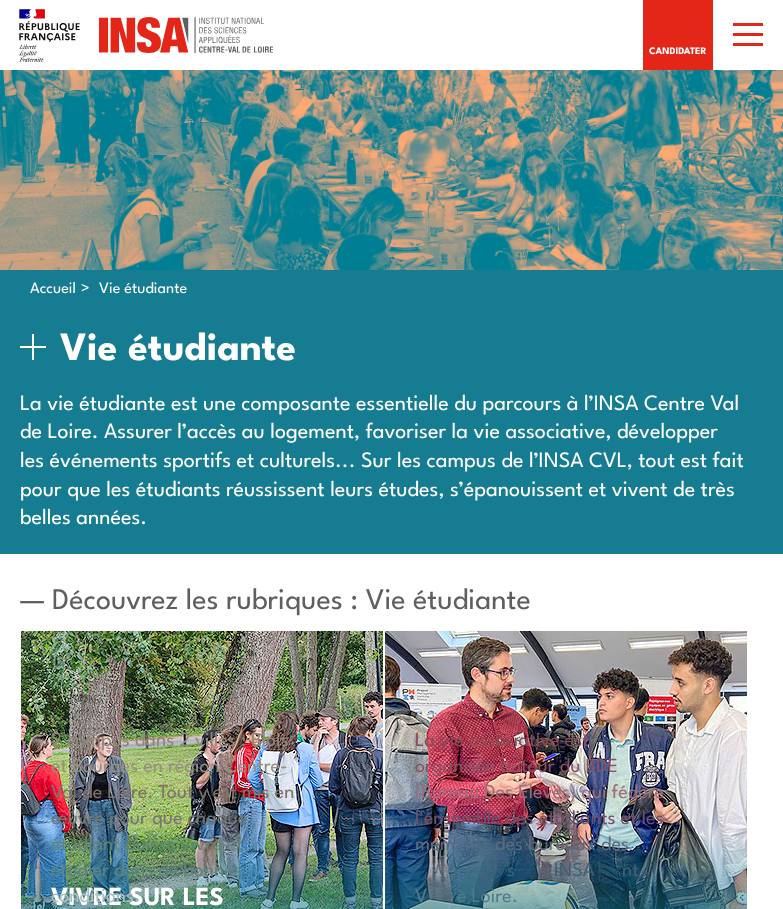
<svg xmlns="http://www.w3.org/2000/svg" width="783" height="909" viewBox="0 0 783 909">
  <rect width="100%" height="100%" fill="rgb(255,255,255)"/>
  <image x="19" y="9" width="61" height="53" href="pic1.png"/>
  <image x="99" y="17" width="174" height="36" href="pic2.png"/>
  <rect x="733" y="23" width="30" height="3" fill="rgb(228,38,24)"/>
  <rect x="733" y="33" width="30" height="3" fill="rgb(228,38,24)"/>
  <rect x="733" y="43" width="30" height="3" fill="rgb(228,38,24)"/>
  <rect x="643" y="0" width="70" height="70" fill="rgb(228,38,24)"/>
  <text x="649" y="54" font-family="League Spartan" font-size="10" font-weight="bold" fill="rgb(255,255,255)">CANDIDATER</text>
  <image x="0" y="70" width="783" height="200" href="pic3.png"/>
  <rect x="0" y="270" width="783" height="284" fill="rgb(22,124,145)"/>
  <g font-family="League Spartan" font-size="16" fill="rgb(255,255,255)">
    <text x="30" y="293">Accueil</text>
    <text x="81" y="293">&gt;</text>
    <text x="99" y="293">Vie étudiante</text>
  </g>
  <rect x="32" y="334" width="2" height="26" fill="rgb(255,255,255)"/>
  <rect x="20" y="346" width="26" height="2" fill="rgb(255,255,255)"/>
  <text x="60" y="360" font-family="League Spartan" font-size="40" font-weight="bold" fill="rgb(255,255,255)">Vie étudiante</text>
  <g font-family="League Spartan" font-size="22" fill="rgb(255,255,255)">
    <text>
      <tspan x="20" y="410">La vie étudiante est une composante essentielle du parcours à l’INSA Centre Val</tspan>
      <tspan x="20" y="438">de Loire. Assurer l’accès au logement, favoriser la vie associative, développer</tspan>
      <tspan x="20" y="467">les événements sportifs et culturels... Sur les campus de l’INSA CVL, tout est fait</tspan>
      <tspan x="20" y="496">pour que les étudiants réussissent leurs études, s’épanouissent et vivent de très</tspan>
      <tspan x="20" y="524">belles années.</tspan>
    </text>
  </g>
  <text x="20" y="609" font-family="League Spartan" font-size="30" fill="rgb(95,95,95)">— Découvrez les rubriques : Vie étudiante</text>
  <image x="21" y="631" width="362" height="278" href="pic4.png"/>
  <text x="51" y="746" font-family="League Spartan" font-size="20" fill="rgb(144,135,122)">2 campus dans 2 villes : Blois</text>
  <text x="51" y="772" font-family="League Spartan" font-size="20" fill="rgb(151,144,128)">et Bourges en région Centre-</text>
  <text x="51" y="798" font-family="League Spartan" font-size="20" fill="rgb(128,114,103)">Val de Loire. Tout y est mis en</text>
  <text x="51" y="824" font-family="League Spartan" font-size="20" fill="rgb(111,121,114)">œuvre pour que chaque</text>
  <text x="51" y="850" font-family="League Spartan" font-size="20" fill="rgb(96,133,118)">étudiant puisse vivre et</text>
  <text x="51" y="876" font-family="League Spartan" font-size="20" fill="rgb(92,132,131)">étudier dans de bonnes</text>
  <text x="51" y="905" font-family="League Spartan" font-size="26" font-weight="bold" fill="rgb(255,255,255)">VIVRE SUR LES</text>
  <text x="51" y="902" font-family="League Spartan" font-size="20" fill="rgb(168,192,195)">conditions.</text>
  <image x="385" y="631" width="362" height="278" href="pic5.png"/>
  <text x="415" y="746" font-family="League Spartan" font-size="20" fill="rgb(136,75,88)">La vie associative est</text>
  <text x="415" y="772" font-family="League Spartan" font-size="20" fill="rgb(139,82,102)">organisée autour du BDE</text>
  <text x="415" y="798" font-family="League Spartan" font-size="20" fill="rgb(155,110,123)">(Bureau Des Élèves) qui fédère</text>
  <text x="415" y="824" font-family="League Spartan" font-size="20" fill="rgb(111,82,105)">l'ensemble des étudiants et les</text>
  <g font-family="League Spartan" font-size="20" fill="rgb(89,108,125)">
    <text x="415" y="850">mem</text>
    <text x="495" y="850">des bureaux des</text>
  </g>
  <g font-family="League Spartan" font-size="20" fill="rgb(63,96,117)">
    <text x="507" y="876">s</text>
    <text x="554" y="876">INSA</text>
    <text x="622" y="876">nt</text>
  </g>
  <g font-family="League Spartan" font-size="20" fill="rgb(81,124,138)">
    <text x="415" y="902">V</text>
    <text x="457" y="902">e Loire.</text>
  </g>
</svg>
